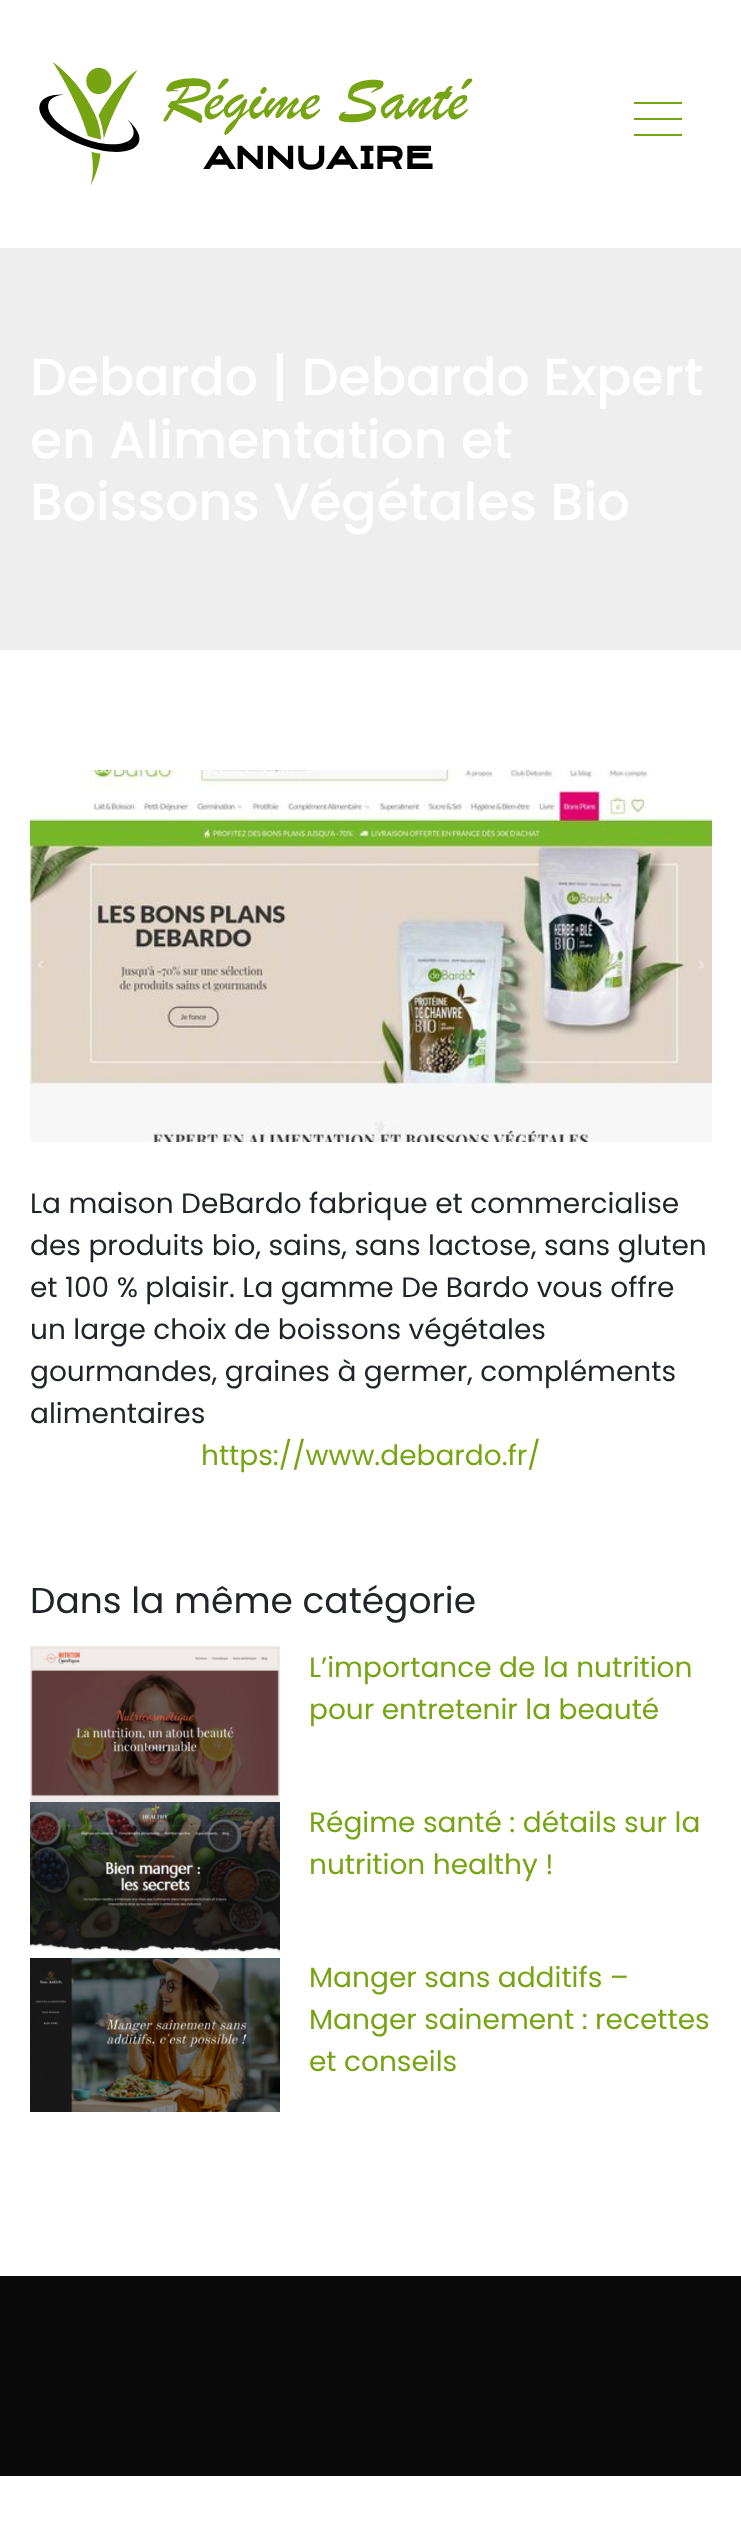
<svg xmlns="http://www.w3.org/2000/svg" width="741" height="2530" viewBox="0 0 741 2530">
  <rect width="100%" height="100%" fill="rgb(255,255,255)"/>
  <image x="39" y="62" width="434" height="124" href="pic1.png"/>
  <rect x="634" y="102" width="48" height="2" fill="rgb(118,164,19)"/>
  <rect x="634" y="118" width="48" height="2" fill="rgb(118,164,19)"/>
  <rect x="634" y="134" width="48" height="2" fill="rgb(118,164,19)"/>
  <rect x="0" y="248" width="741" height="402" fill="rgb(238,238,238)"/>
  <g font-family="Poppins" font-size="52" font-weight="500" fill="rgb(255,255,255)">
    <text>
      <tspan x="30" y="395">Debardo | Debardo Expert</tspan>
      <tspan x="30" y="458">en Alimentation et</tspan>
      <tspan x="30" y="520">Boissons Végétales Bio</tspan>
    </text>
  </g>
  <image x="30" y="770" width="682" height="372" href="pic2.png"/>
  <g font-family="Poppins" font-size="28" fill="rgb(33,37,41)">
    <text>
      <tspan x="30" y="1213">La maison DeBardo fabrique et commercialise</tspan>
      <tspan x="30" y="1255">des produits bio, sains, sans lactose, sans gluten</tspan>
      <tspan x="30" y="1297">et 100 % plaisir. La gamme De Bardo vous offre</tspan>
      <tspan x="30" y="1339">un large choix de boissons végétales</tspan>
      <tspan x="30" y="1381">gourmandes, graines à germer, compléments</tspan>
      <tspan x="30" y="1423">alimentaires</tspan>
    </text>
  </g>
  <text x="201" y="1465" font-family="Poppins" font-size="28" fill="rgb(118,164,19)">https://www.debardo.fr/</text>
  <text x="30" y="1613" font-family="Poppins" font-size="36" fill="rgb(33,37,41)">Dans la même catégorie</text>
  <image x="30" y="1646" width="250" height="156" href="pic3.png"/>
  <g font-family="Poppins" font-size="28" fill="rgb(118,164,19)">
    <text>
      <tspan x="309" y="1677">L’importance de la nutrition</tspan>
      <tspan x="309" y="1719">pour entretenir la beauté</tspan>
    </text>
  </g>
  <image x="30" y="1802" width="250" height="151" href="pic4.png"/>
  <g font-family="Poppins" font-size="28" fill="rgb(118,164,19)">
    <text>
      <tspan x="309" y="1832">Régime santé : détails sur la</tspan>
      <tspan x="309" y="1874">nutrition healthy !</tspan>
    </text>
  </g>
  <image x="30" y="1958" width="250" height="154" href="pic5.png"/>
  <g font-family="Poppins" font-size="28" fill="rgb(118,164,19)">
    <text>
      <tspan x="309" y="1987">Manger sans additifs –</tspan>
      <tspan x="309" y="2029">Manger sainement : recettes</tspan>
      <tspan x="309" y="2071">et conseils</tspan>
    </text>
  </g>
  <rect x="0" y="2276" width="741" height="200" fill="rgb(10,10,10)"/>
</svg>
